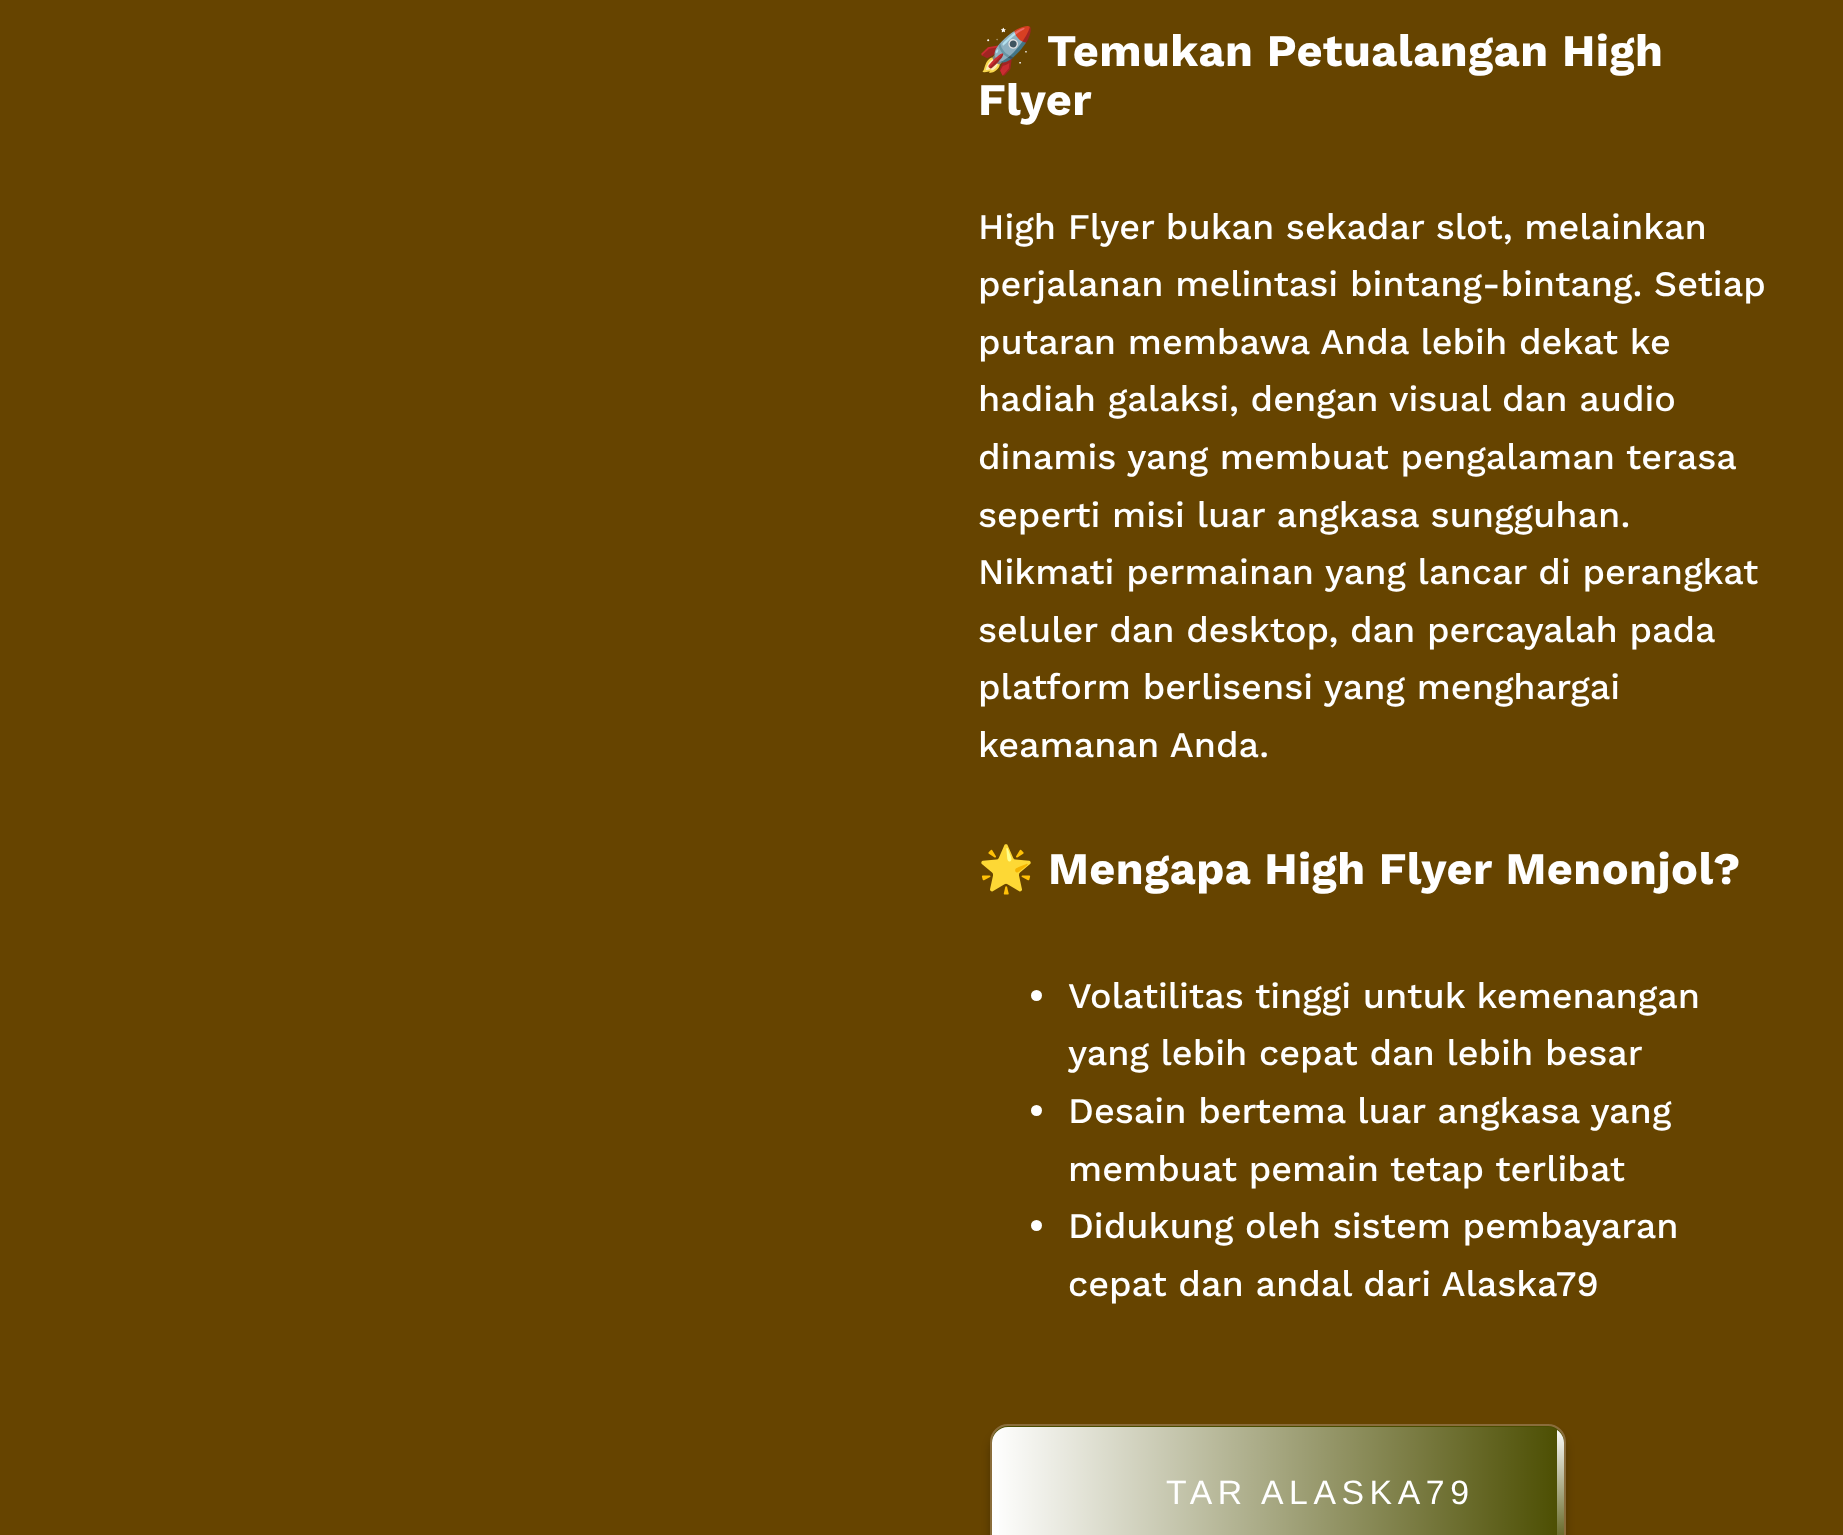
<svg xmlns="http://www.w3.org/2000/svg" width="1843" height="1535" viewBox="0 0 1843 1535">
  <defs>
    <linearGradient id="g1" gradientUnits="userSpaceOnUse" x1="1564" y1="1494" x2="992" y2="1494"><stop offset="0" stop-color="rgb(255,255,255)" stop-opacity="0"/><stop offset="1" stop-color="rgb(255,255,255)"/></linearGradient>
    <clipPath id="clip1"><rect x="992" y="1427" width="572" height="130" rx="16"/></clipPath>
    <linearGradient id="g2" gradientUnits="userSpaceOnUse" x1="996" y1="1427" x2="996" y2="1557"><stop offset="0" stop-color="rgb(255,255,255)" stop-opacity="0"/><stop offset="1" stop-color="rgb(255,255,255)"/></linearGradient>
    <linearGradient id="g3" gradientUnits="userSpaceOnUse" x1="1560" y1="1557" x2="1560" y2="1427"><stop offset="0" stop-color="rgb(255,255,255)" stop-opacity="0"/><stop offset="1" stop-color="rgb(255,255,255)"/></linearGradient>
  </defs>
  <rect width="100%" height="100%" fill="rgb(102,68,0)"/>
  <text x="978" y="66" font-family="Noto Color Emoji" font-size="45" font-weight="bold" letter-spacing="0.45" fill="rgb(255,255,255)">🚀</text>
  <g font-family="Work Sans" font-size="45" font-weight="bold" letter-spacing="0.45" fill="rgb(255,255,255)">
    <text x="1047" y="66">Temukan Petualangan High</text>
    <text x="978" y="115">Flyer</text>
  </g>
  <g font-family="Work Sans" font-size="36" font-weight="500" fill="rgb(255,255,255)">
    <text>
      <tspan x="978" y="239">High Flyer bukan sekadar slot, melainkan</tspan>
      <tspan x="978" y="296">perjalanan melintasi bintang-bintang. Setiap</tspan>
      <tspan x="978" y="354">putaran membawa Anda lebih dekat ke</tspan>
      <tspan x="978" y="411">hadiah galaksi, dengan visual dan audio</tspan>
      <tspan x="978" y="469">dinamis yang membuat pengalaman terasa</tspan>
      <tspan x="978" y="527">seperti misi luar angkasa sungguhan.</tspan>
      <tspan x="978" y="584">Nikmati permainan yang lancar di perangkat</tspan>
      <tspan x="978" y="642">seluler dan desktop, dan percayalah pada</tspan>
      <tspan x="978" y="699">platform berlisensi yang menghargai</tspan>
      <tspan x="978" y="757">keamanan Anda.</tspan>
    </text>
  </g>
  <text x="978" y="884" font-family="Noto Color Emoji" font-size="45" font-weight="bold" letter-spacing="0.45" fill="rgb(255,255,255)">🌟</text>
  <text x="1048" y="884" font-family="Work Sans" font-size="45" font-weight="bold" letter-spacing="0.45" fill="rgb(255,255,255)">Mengapa High Flyer Menonjol?</text>
  <circle cx="1036.5" cy="995.5" r="5.5" fill="rgb(255,255,255)"/>
  <g font-family="Work Sans" font-size="36" font-weight="500" fill="rgb(255,255,255)">
    <text>
      <tspan x="1068" y="1008">Volatilitas tinggi untuk kemenangan</tspan>
      <tspan x="1068" y="1065">yang lebih cepat dan lebih besar</tspan>
    </text>
  </g>
  <circle cx="1036.5" cy="1110.5" r="5.5" fill="rgb(255,255,255)"/>
  <g font-family="Work Sans" font-size="36" font-weight="500" fill="rgb(255,255,255)">
    <text>
      <tspan x="1068" y="1123">Desain bertema luar angkasa yang</tspan>
      <tspan x="1068" y="1181">membuat pemain tetap terlibat</tspan>
    </text>
  </g>
  <circle cx="1036.5" cy="1225.5" r="5.5" fill="rgb(255,255,255)"/>
  <g font-family="Work Sans" font-size="36" font-weight="500" fill="rgb(255,255,255)">
    <text>
      <tspan x="1068" y="1238">Didukung oleh sistem pembayaran</tspan>
      <tspan x="1068" y="1296">cepat dan andal dari Alaska79</tspan>
    </text>
  </g>
  <rect x="990" y="1433" width="576" height="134" rx="18" fill="rgba(0,0,0,0.25)" filter="blur(4.5px)"/>
  <rect x="991" y="1425" width="574" height="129" rx="17" fill="rgb(75,77,0)" stroke="rgb(138,109,59)" stroke-width="2"/>
  <text x="1166" y="1504" font-family="Liberation Sans" font-size="33.75" letter-spacing="5.6" fill="rgb(255,255,255)">TAR ALASKA79</text>
  <rect x="992" y="1427" width="572" height="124" rx="16" fill="url(#g1)"/>
  <g clip-path="url(#clip1)">
    <rect x="992" y="1427" width="7" height="108" fill="url(#g2)"/>
    <rect x="1557" y="1427" width="7" height="108" fill="url(#g3)"/>
  </g>
</svg>
